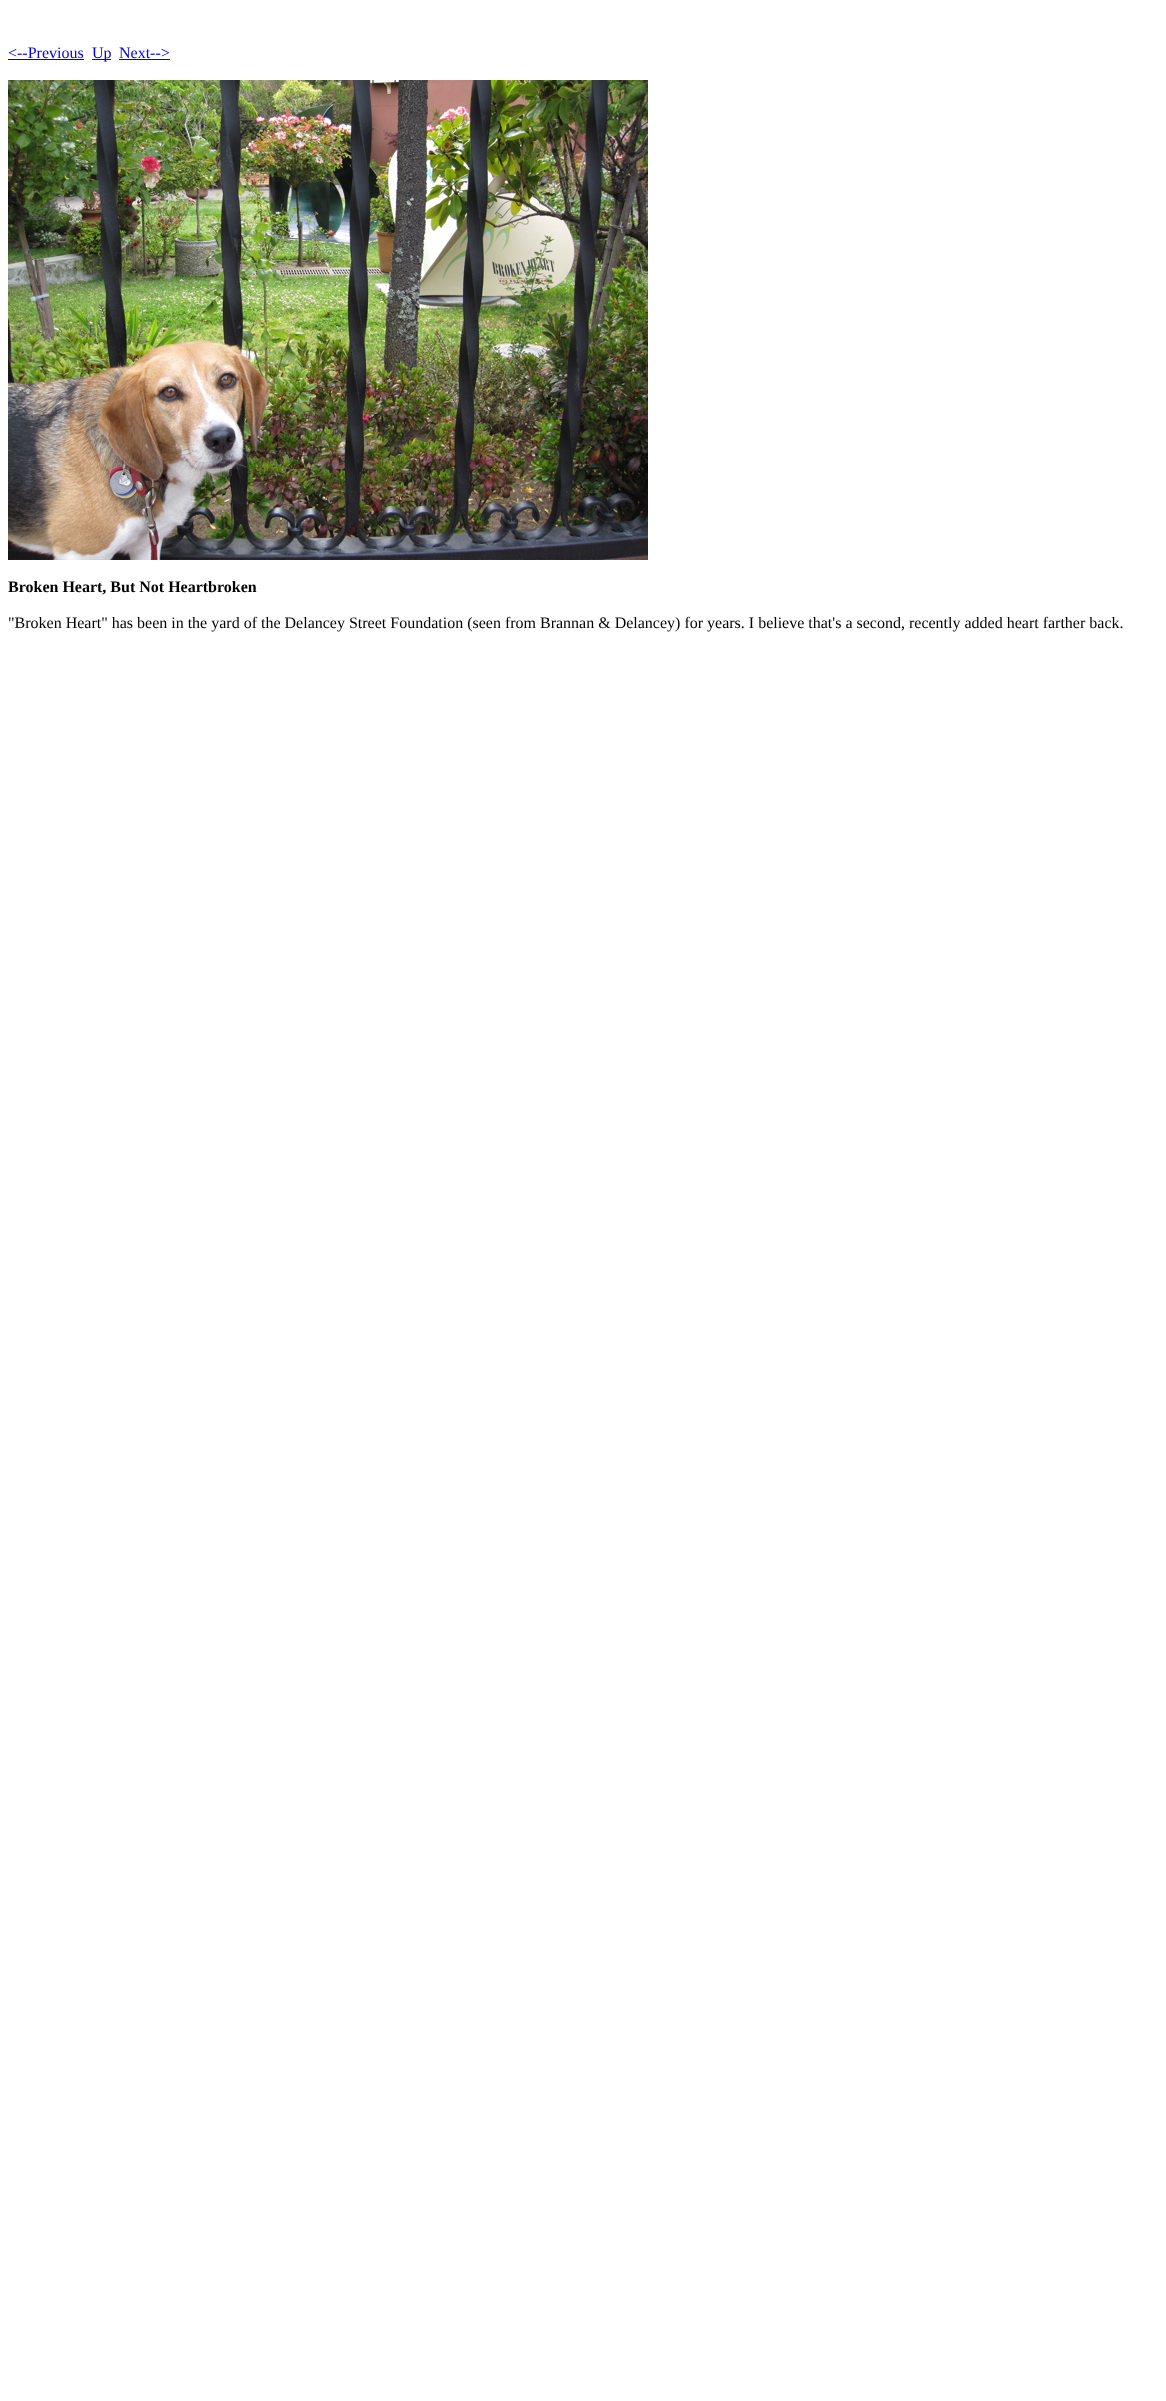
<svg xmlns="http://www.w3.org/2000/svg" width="1166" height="2401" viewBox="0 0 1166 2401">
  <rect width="100%" height="100%" fill="rgb(255,255,255)"/>
  <text x="8" y="58" font-family="Liberation Serif" font-size="16" fill="rgb(0,0,238)">&lt;--Previous</text>
  <rect x="8" y="59" width="76" height="1" fill="rgb(0,0,238)"/>
  <rect x="92" y="59" width="19" height="1" fill="rgb(0,0,238)"/>
  <g font-family="Liberation Serif" font-size="16" fill="rgb(0,0,238)">
    <text x="92" y="58">Up</text>
    <text x="119" y="58">Next--&gt;</text>
  </g>
  <rect x="119" y="59" width="51" height="1" fill="rgb(0,0,238)"/>
  <image x="8" y="80" width="640" height="480" href="pic1.png"/>
  <text x="8" y="592" font-family="Liberation Serif" font-size="16" font-weight="bold" fill="rgb(0,0,0)">Broken Heart, But Not Heartbroken</text>
  <text x="8" y="628" font-family="Liberation Serif" font-size="16" fill="rgb(0,0,0)">"Broken Heart" has been in the yard of the Delancey Street Foundation (seen from Brannan &amp; Delancey) for years. I believe that's a second, recently added heart farther back.</text>
</svg>
